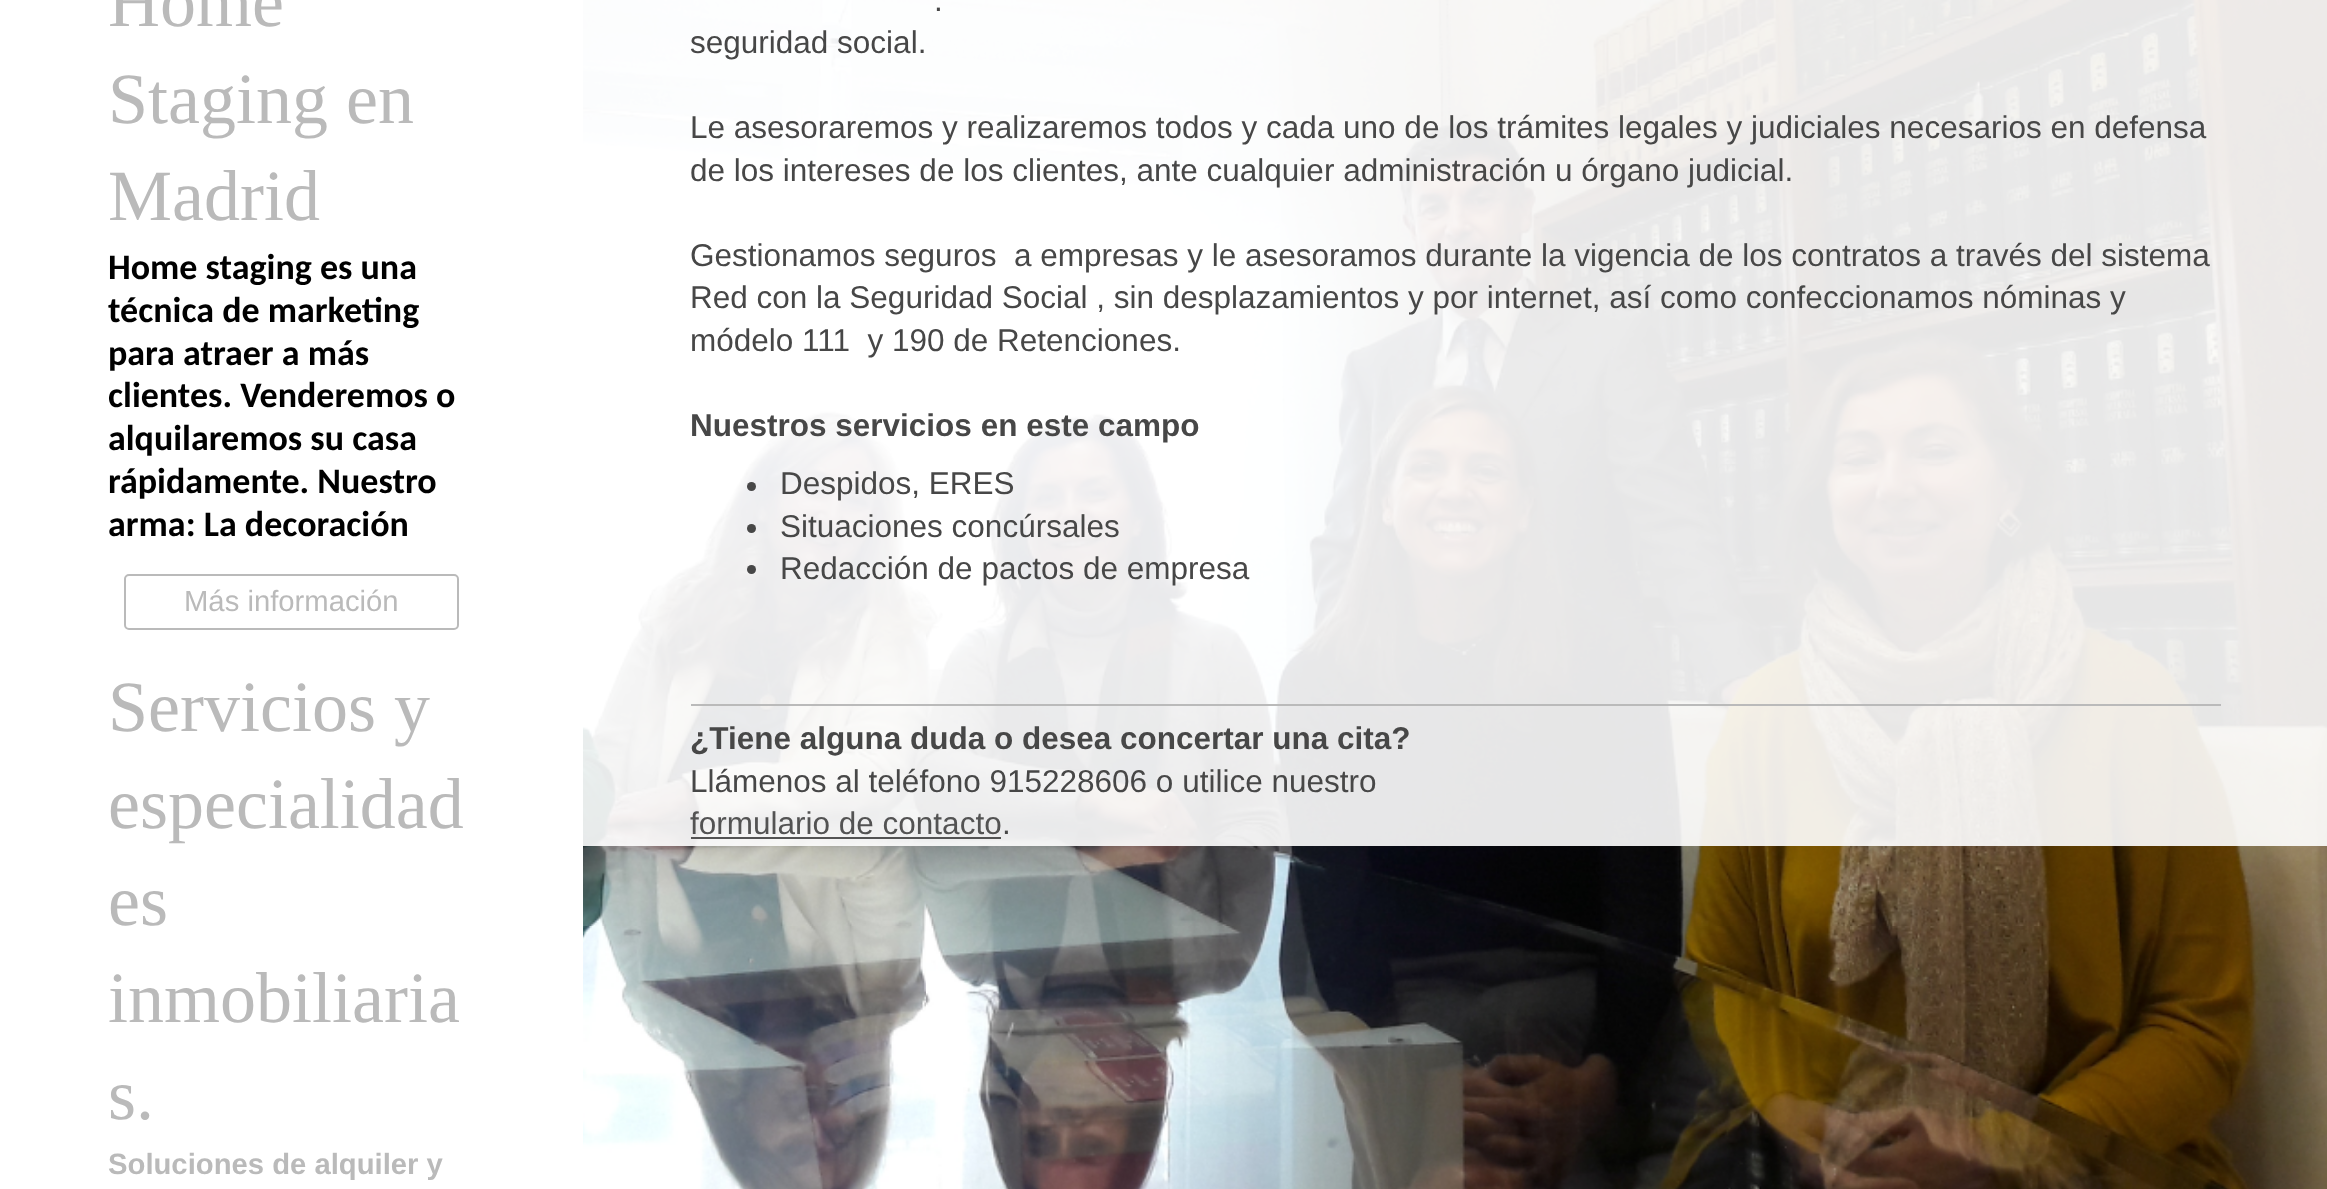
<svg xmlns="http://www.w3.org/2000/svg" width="2327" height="1189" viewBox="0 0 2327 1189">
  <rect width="100%" height="100%" fill="rgb(255,255,255)"/>
  <image x="583" y="0" width="1744" height="1189" href="pic1.png"/>
  <g font-family="Liberation Serif" font-size="72" fill="rgb(186,186,186)">
    <text>
      <tspan x="108" y="26">Home</tspan>
      <tspan x="108" y="123">Staging en</tspan>
      <tspan x="108" y="220">Madrid</tspan>
    </text>
  </g>
  <g font-family="Carlito" font-size="36" font-weight="bold" fill="rgb(0,0,0)">
    <text>
      <tspan x="108" y="279">Home staging es una</tspan>
      <tspan x="108" y="322">técnica de marketing</tspan>
      <tspan x="108" y="365">para atraer a más</tspan>
      <tspan x="108" y="407">clientes. Venderemos o</tspan>
      <tspan x="108" y="450">alquilaremos su casa</tspan>
      <tspan x="108" y="493">rápidamente. Nuestro</tspan>
      <tspan x="108" y="536">arma: La decoración</tspan>
    </text>
  </g>
  <rect x="125" y="575" width="333" height="54" rx="4" fill="none" stroke="rgb(186,186,186)" stroke-width="2"/>
  <text x="184" y="611" font-family="Liberation Sans" font-size="29.25" fill="rgb(186,186,186)">Más información</text>
  <g font-family="Liberation Serif" font-size="72" fill="rgb(186,186,186)">
    <text>
      <tspan x="108" y="731">Servicios y</tspan>
      <tspan x="108" y="828">especialidad</tspan>
      <tspan x="108" y="925">es</tspan>
      <tspan x="108" y="1022">inmobiliaria</tspan>
      <tspan x="108" y="1119">s.</tspan>
    </text>
  </g>
  <text x="108" y="1174" font-family="Liberation Sans" font-size="29.25" font-weight="bold" fill="rgb(186,186,186)">Soluciones de alquiler y</text>
  <rect x="583" y="0" width="1744" height="846" fill="rgba(255,255,255,0.9)"/>
  <g font-family="Liberation Sans" font-size="31.5" fill="rgb(71,71,71)">
    <text x="934" y="11">.</text>
    <text x="690" y="53">seguridad social.</text>
    <text>
      <tspan x="690" y="138">Le asesoraremos y realizaremos todos y cada uno de los trámites legales y judiciales necesarios en defensa</tspan>
      <tspan x="690" y="181">de los intereses de los clientes, ante cualquier administración u órgano judicial.</tspan>
    </text>
    <text xml:space="preserve"><tspan x="690" y="266">Gestionamos seguros  a empresas y le asesoramos durante la vigencia de los contratos a través del sistema</tspan><tspan x="690" y="308">Red con la Seguridad Social , sin desplazamientos y por internet, así como confeccionamos nóminas y</tspan><tspan x="690" y="351">módelo 111  y 190 de Retenciones.</tspan></text>
  </g>
  <text x="690" y="436" font-family="Liberation Sans" font-size="31.5" font-weight="bold" fill="rgb(71,71,71)">Nuestros servicios en este campo</text>
  <circle cx="751.5" cy="486.5" r="4.5" fill="rgb(71,71,71)"/>
  <text x="780" y="494" font-family="Liberation Sans" font-size="31.5" fill="rgb(71,71,71)">Despidos, ERES</text>
  <circle cx="751.5" cy="528.5" r="4.5" fill="rgb(71,71,71)"/>
  <text x="780" y="537" font-family="Liberation Sans" font-size="31.5" fill="rgb(71,71,71)">Situaciones concúrsales</text>
  <circle cx="751.5" cy="569.5" r="4.5" fill="rgb(71,71,71)"/>
  <text x="780" y="579" font-family="Liberation Sans" font-size="31.5" fill="rgb(71,71,71)">Redacción de pactos de empresa</text>
  <rect x="691" y="704" width="1530" height="2" fill="rgb(186,186,186)"/>
  <text x="690" y="749" font-family="Liberation Sans" font-size="31.5" font-weight="bold" fill="rgb(71,71,71)">¿Tiene alguna duda o desea concertar una cita?</text>
  <text x="690" y="792" font-family="Liberation Sans" font-size="31.5" fill="rgb(71,71,71)">Llámenos al teléfono 915228606 o utilice nuestro</text>
  <text x="690" y="834" font-family="Liberation Sans" font-size="31.5" fill="rgb(83,83,83)">formulario de contacto</text>
  <rect x="691" y="837" width="310" height="2" fill="rgb(83,83,83)"/>
  <text x="1002" y="834" font-family="Liberation Sans" font-size="31.5" fill="rgb(71,71,71)">.</text>
</svg>
